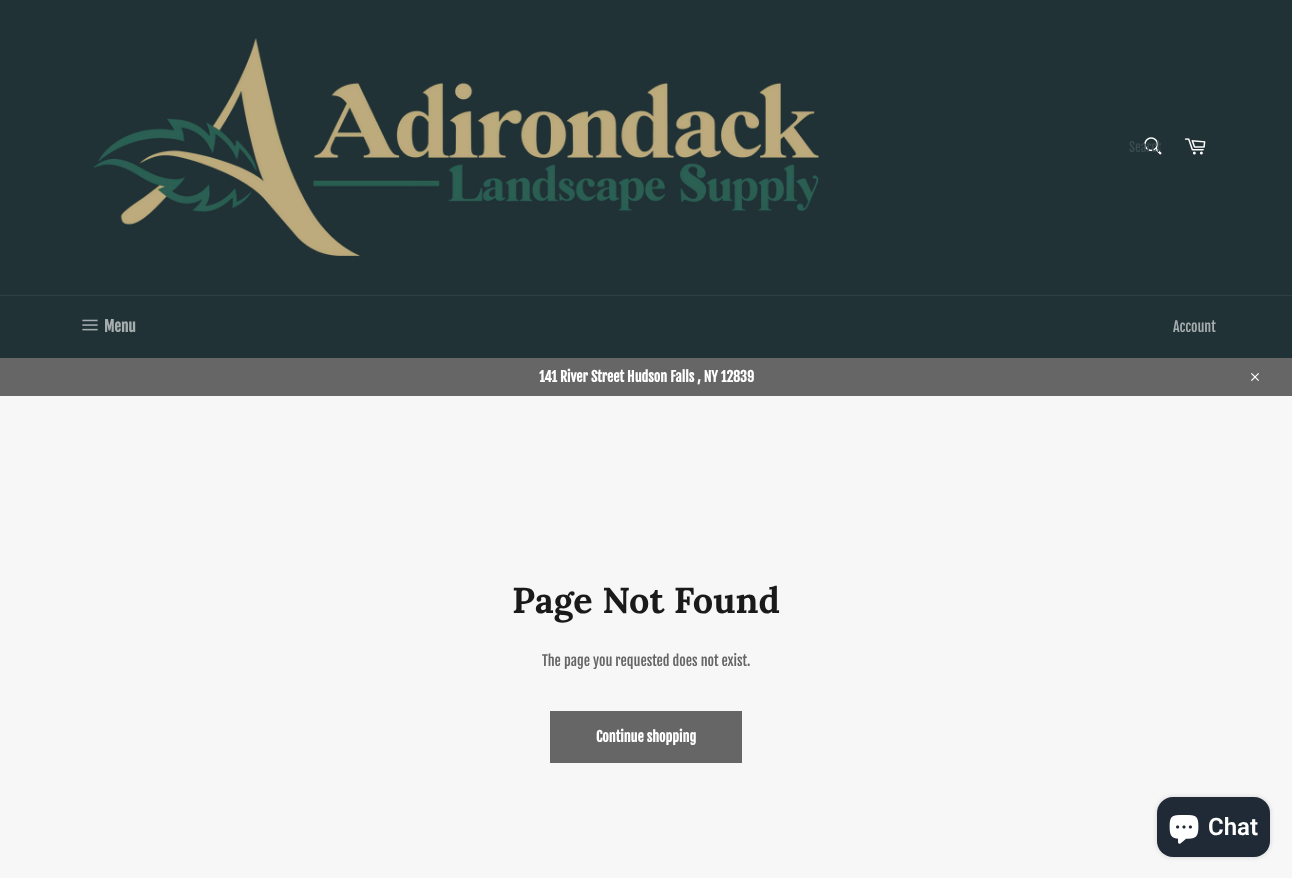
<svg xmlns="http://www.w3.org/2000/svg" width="1292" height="878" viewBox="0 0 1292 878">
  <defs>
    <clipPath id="clip1"><rect x="1129" y="139" width="32" height="16"/></clipPath>
  </defs>
  <rect width="100%" height="100%" fill="rgb(247,247,247)"/>
  <rect x="0" y="0" width="1292" height="295" fill="rgb(33,50,54)"/>
  <image x="93" y="38" width="726" height="219" href="pic1.png"/>
  <image x="1144" y="137" width="18" height="18" href="pic2.png"/>
  <g clip-path="url(#clip1)">
    <text x="1129" y="152" font-family="Fjalla One" font-size="13" fill="rgb(59,74,77)">Search</text>
  </g>
  <image x="1184" y="138" width="22" height="17" href="pic3.png"/>
  <rect x="0" y="296" width="1292" height="62" fill="rgb(33,50,54)"/>
  <rect x="0" y="295" width="1292" height="1" fill="rgb(43,65,70)"/>
  <image x="82" y="319" width="16" height="12" href="pic4.png"/>
  <text x="104" y="332" font-family="Fjalla One" font-size="15" font-weight="bold" fill="rgb(166,173,175)">Menu</text>
  <text x="1173" y="332" font-family="Fjalla One" font-size="14" fill="rgb(166,173,175)">Account</text>
  <rect x="0" y="358" width="1292" height="38" fill="rgb(102,102,102)"/>
  <text x="539" y="382" font-family="Fjalla One" font-size="14" font-weight="bold" fill="rgb(255,255,255)">141 River Street Hudson Falls , NY 12839</text>
  <image x="1251" y="373" width="8" height="8" href="pic5.png"/>
  <text x="512" y="613" font-family="Lora" font-size="36" font-weight="bold" fill="rgb(26,26,26)">Page Not Found</text>
  <text x="542" y="666" font-family="Fjalla One" font-size="14" fill="rgb(102,102,102)">The page you requested does not exist.</text>
  <rect x="550" y="711" width="192" height="52" fill="rgb(102,102,102)"/>
  <text x="596" y="742" font-family="Fjalla One" font-size="14" font-weight="bold" fill="rgb(255,255,255)">Continue shopping</text>
  <rect x="1157" y="797" width="113" height="60" rx="16" fill="rgba(0,0,0,0.15)" filter="blur(2.5px)"/>
  <rect x="1157" y="797" width="113" height="60" rx="16" fill="rgb(32,42,54)"/>
  <image x="1169" y="815" width="30" height="29" href="pic6.png"/>
  <text x="1208" y="835" font-family="Roboto" font-size="24" font-weight="600" fill="rgb(255,255,255)">Chat</text>
</svg>
